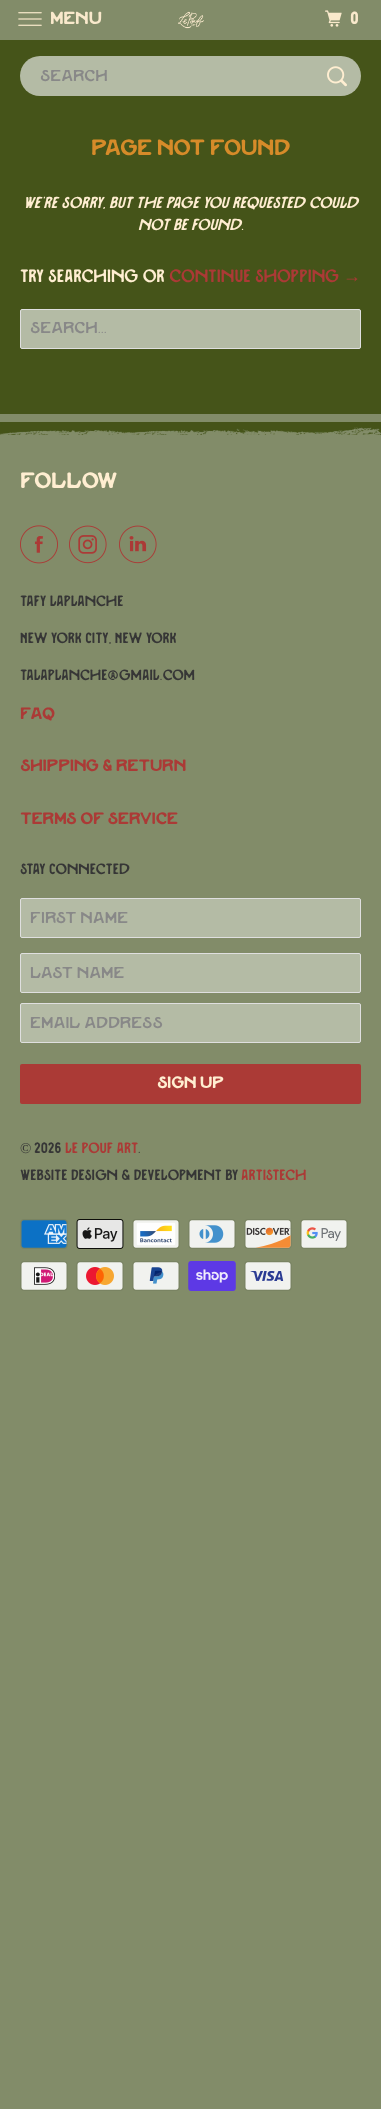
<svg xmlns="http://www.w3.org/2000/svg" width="381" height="2109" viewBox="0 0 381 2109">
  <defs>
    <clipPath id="clip1"><rect x="40" y="70" width="301" height="13"/></clipPath>
    <clipPath id="clip2"><rect x="30" y="322" width="321" height="13"/></clipPath>
    <clipPath id="clip3"><rect x="30" y="912" width="321" height="13"/></clipPath>
    <clipPath id="clip4"><rect x="30" y="967" width="321" height="13"/></clipPath>
    <clipPath id="clip5"><rect x="30" y="1017" width="321" height="13"/></clipPath>
  </defs>
  <rect width="100%" height="100%" fill="rgb(130,140,105)"/>
  <image x="18" y="12" width="24" height="14" href="pic1.png"/>
  <text x="50" y="24" font-family="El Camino" font-size="17" font-weight="bold" fill="rgb(249,233,204)">Menu</text>
  <image x="178" y="11" width="26" height="18" href="pic2.png"/>
  <image x="325" y="10" width="17" height="17" href="pic3.png"/>
  <text x="350" y="24" font-family="El Camino" font-size="17" font-weight="bold" fill="rgb(249,233,204)">0</text>
  <rect x="0" y="40" width="381" height="374" fill="rgb(69,84,25)"/>
  <rect x="20" y="56" width="341" height="40" rx="20" fill="rgb(180,187,165)"/>
  <g clip-path="url(#clip1)">
    <text x="40" y="81" font-family="El Camino" font-size="16" fill="rgb(136,136,136)">Search</text>
  </g>
  <image x="327" y="66" width="20" height="21" href="pic4.png"/>
  <text x="91" y="155" font-family="El Camino" font-size="21.5" font-weight="bold" fill="rgb(214,139,41)">Page Not Found</text>
  <g font-family="El Camino" font-size="16" font-style="italic" fill="rgb(255,238,209)">
    <text x="23" y="208">We're sorry, but the page you requested could</text>
    <text x="138" y="230">not be found.</text>
  </g>
  <text x="20" y="282" font-family="'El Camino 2'" font-size="18" fill="rgb(255,238,209)">Try searching or</text>
  <text x="169" y="282" font-family="'El Camino 2'" font-size="18" fill="rgb(171,58,54)">continue shopping</text>
  <text x="343" y="282" font-family="Liberation Serif" font-size="18" fill="rgb(171,58,54)">→</text>
  <rect x="20.5" y="309.5" width="340" height="39" rx="1.5" fill="rgb(180,187,165)" stroke="rgb(223,223,223)"/>
  <g clip-path="url(#clip2)">
    <text x="30" y="333" font-family="El Camino" font-size="16" fill="rgb(136,136,136)">Search...</text>
  </g>
  <image x="0" y="422" width="381" height="13" href="pic5.png"/>
  <text x="20" y="488" font-family="El Camino" font-size="21.5" font-weight="bold" fill="rgb(255,238,209)">Follow</text>
  <image x="20" y="525" width="38" height="39" href="pic6.png"/>
  <image x="69" y="525" width="38" height="39" href="pic7.png"/>
  <image x="119" y="525" width="38" height="39" href="pic8.png"/>
  <g font-family="'El Camino 2'" font-size="15" fill="rgb(54,54,54)">
    <text x="20" y="606">Tafy LaPlanche</text>
    <text x="20" y="643">New York City, New York</text>
    <text x="20" y="680">Talaplanche@gmail.com</text>
  </g>
  <g font-family="El Camino" font-size="16" font-weight="bold" fill="rgb(171,58,54)">
    <text x="20" y="719">FAQ</text>
    <text x="20" y="771">Shipping &amp; Return</text>
    <text x="20" y="824">Terms of Service</text>
  </g>
  <text x="20" y="874" font-family="'El Camino 2'" font-size="15" fill="rgb(54,54,54)">Stay Connected</text>
  <rect x="20.5" y="898.5" width="340" height="39" rx="1.5" fill="rgb(180,187,165)" stroke="rgb(223,223,223)"/>
  <g clip-path="url(#clip3)">
    <text x="30" y="923" font-family="El Camino" font-size="16" fill="rgb(136,136,136)">First name</text>
  </g>
  <rect x="20.5" y="953.5" width="340" height="39" rx="1.5" fill="rgb(180,187,165)" stroke="rgb(223,223,223)"/>
  <g clip-path="url(#clip4)">
    <text x="30" y="978" font-family="El Camino" font-size="16" fill="rgb(136,136,136)">Last name</text>
  </g>
  <rect x="20.5" y="1003.5" width="340" height="39" rx="1.5" fill="rgb(180,187,165)" stroke="rgb(223,223,223)"/>
  <g clip-path="url(#clip5)">
    <text x="30" y="1028" font-family="El Camino" font-size="16" fill="rgb(136,136,136)">Email address</text>
  </g>
  <rect x="20" y="1064" width="341" height="40" rx="2" fill="rgb(171,58,54)"/>
  <text x="157" y="1088" font-family="El Camino" font-size="16" font-weight="bold" fill="rgb(255,238,209)">Sign Up</text>
  <text x="20" y="1153" font-family="Liberation Serif" font-size="15" fill="rgb(54,54,54)">©</text>
  <text x="34" y="1153" font-family="'El Camino 2'" font-size="15" fill="rgb(54,54,54)">2026</text>
  <text x="65" y="1153" font-family="'El Camino 2'" font-size="15" fill="rgb(171,58,54)">Le Pouf Art</text>
  <g font-family="'El Camino 2'" font-size="15" fill="rgb(54,54,54)">
    <text x="138" y="1153">.</text>
    <text x="20" y="1180">Website Design &amp; Development by</text>
  </g>
  <text x="241" y="1180" font-family="'El Camino 2'" font-size="15" fill="rgb(171,58,54)">Artistech</text>
  <image x="20" y="1219" width="48" height="30" href="pic9.png"/>
  <image x="76" y="1219" width="48" height="30" href="pic10.png"/>
  <image x="132" y="1219" width="48" height="30" href="pic11.png"/>
  <image x="188" y="1219" width="48" height="30" href="pic12.png"/>
  <image x="244" y="1219" width="48" height="30" href="pic13.png"/>
  <image x="300" y="1219" width="48" height="30" href="pic14.png"/>
  <image x="20" y="1261" width="48" height="30" href="pic15.png"/>
  <image x="76" y="1261" width="48" height="30" href="pic16.png"/>
  <image x="132" y="1261" width="48" height="30" href="pic17.png"/>
  <image x="188" y="1261" width="48" height="30" href="pic18.png"/>
  <image x="244" y="1261" width="48" height="30" href="pic19.png"/>
</svg>
